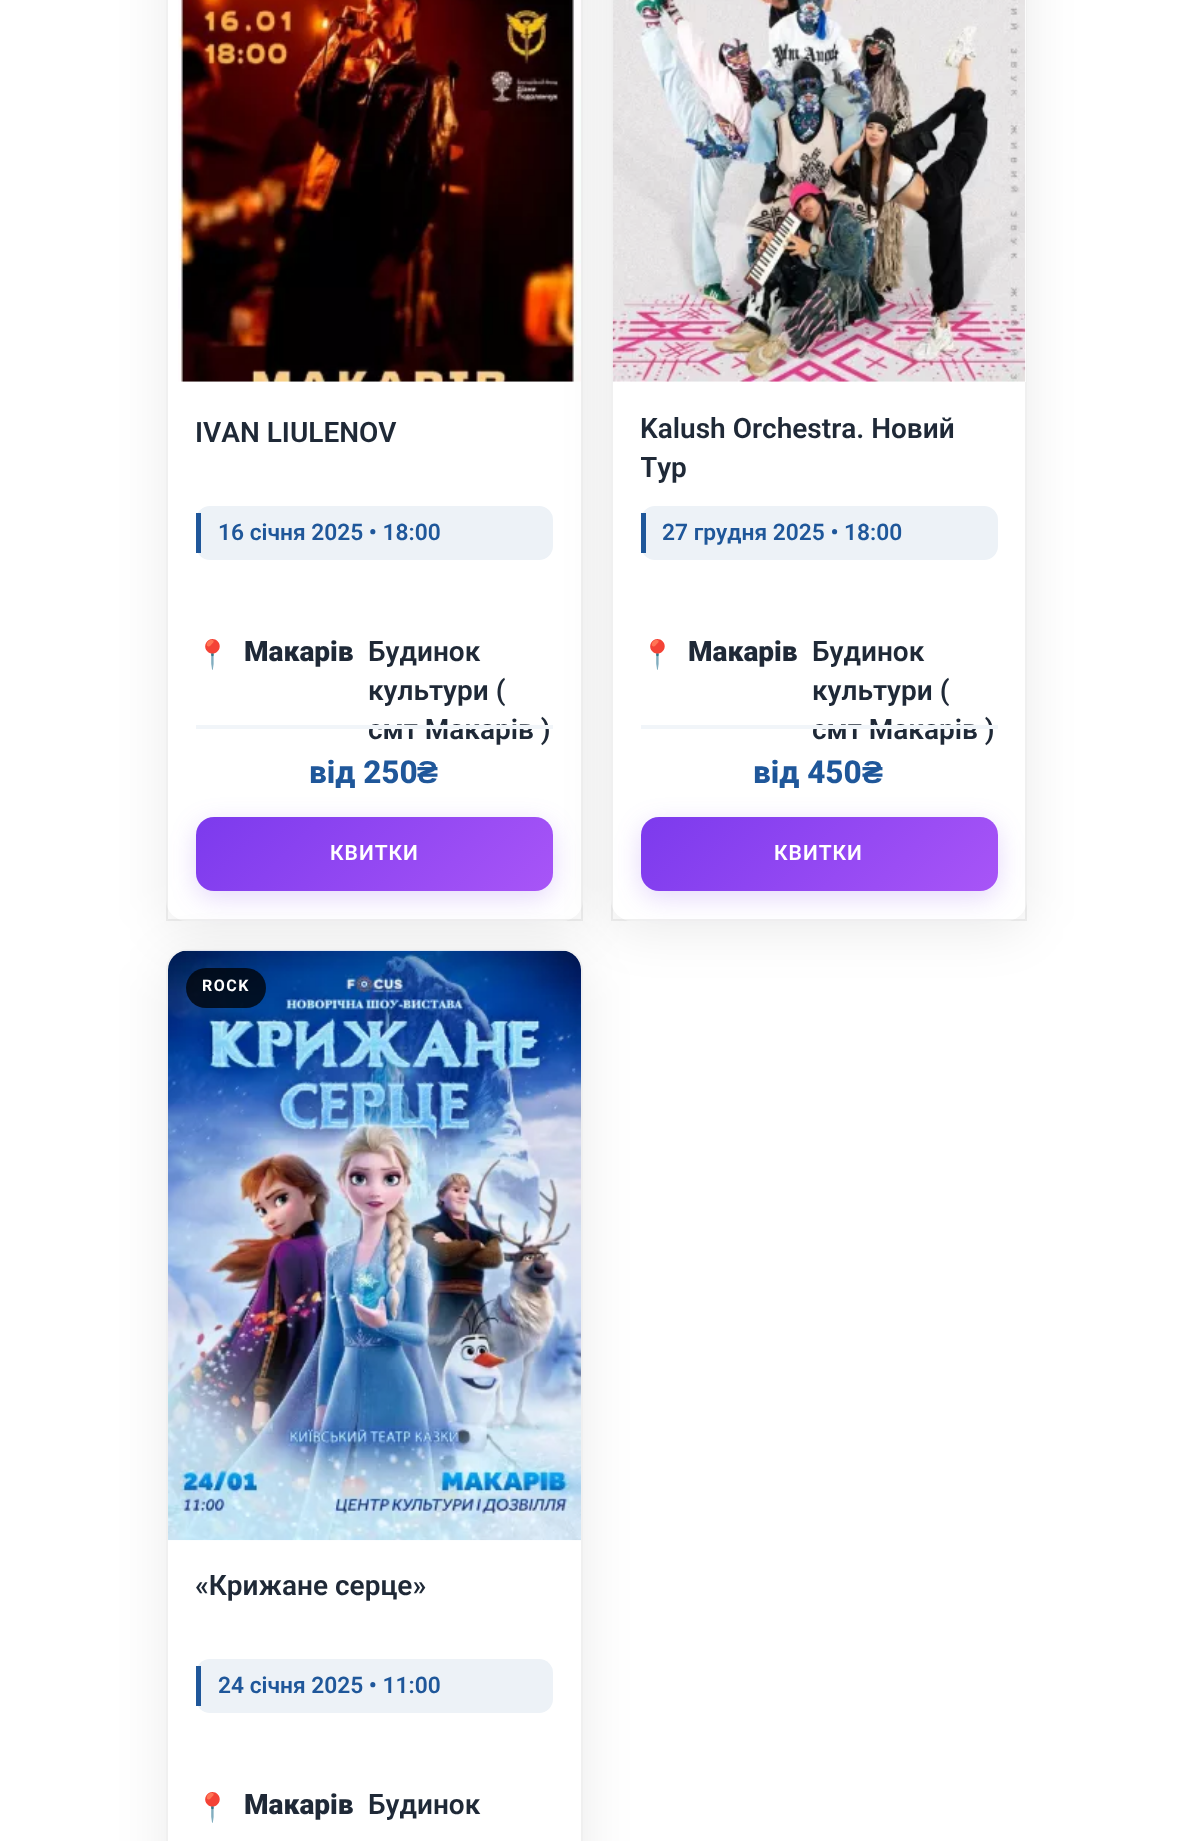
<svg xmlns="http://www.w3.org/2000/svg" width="1191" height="1841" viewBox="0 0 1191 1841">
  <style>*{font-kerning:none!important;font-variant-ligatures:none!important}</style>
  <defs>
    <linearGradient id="g1" gradientUnits="userSpaceOnUse" x1="267" y1="746" x2="482" y2="962"><stop offset="0" stop-color="rgb(124,58,237)"/><stop offset="1" stop-color="rgb(168,85,247)"/></linearGradient>
    <clipPath id="clip1"><rect x="641" y="410" width="357" height="78"/></clipPath>
    <linearGradient id="g2" gradientUnits="userSpaceOnUse" x1="711" y1="746" x2="927" y2="962"><stop offset="0" stop-color="rgb(124,58,237)"/><stop offset="1" stop-color="rgb(168,85,247)"/></linearGradient>
  </defs>
  <rect width="100%" height="100%" fill="rgb(255,255,255)"/>
  <rect x="166" y="-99" width="417" height="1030" rx="21" fill="rgba(0,0,0,0.08)" filter="blur(26px)"/>
  <rect x="166" y="-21" width="417" height="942" rx="21" fill="rgb(255,255,255)"/>
  <rect x="167" y="-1" width="415" height="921" fill="none" stroke="rgba(0,0,0,0.06)" stroke-width="2"/>
  <image x="178" y="0" width="403" height="382" href="pic1.png"/>
  <text x="195" y="442" font-family="Roboto" font-size="28" font-weight="600" fill="rgb(31,41,55)">IVAN LIULENOV</text>
  <rect x="196" y="506" width="357" height="54" rx="14" fill="rgb(237,242,247)"/>
  <rect x="196" y="513" width="5" height="40" fill="rgb(31,87,154)"/>
  <text x="218" y="540" font-family="Roboto" font-size="22.75" font-weight="600" fill="rgb(31,87,154)">16 січня 2025 • 18:00</text>
  <text x="195" y="664" font-family="Noto Color Emoji" font-size="28" font-weight="bold" fill="rgb(31,41,55)">📍</text>
  <text x="244" y="661" font-family="Roboto" font-size="28" font-weight="900" fill="rgb(31,41,55)">Макарів</text>
  <g font-family="Roboto" font-size="28" font-weight="600" fill="rgb(31,41,55)">
    <text>
      <tspan x="368" y="661">Будинок</tspan>
      <tspan x="368" y="700">культури (</tspan>
      <tspan x="368" y="739">смт Макарів )</tspan>
    </text>
  </g>
  <rect x="196" y="725" width="357" height="4" fill="rgb(241,245,249)"/>
  <text x="309" y="783" font-family="Roboto" font-size="31.5" font-weight="800" fill="rgb(31,87,154)">від 250</text>
  <text x="417" y="783" font-family="Liberation Sans" font-size="31.5" font-weight="bold" fill="rgb(31,87,154)">₴</text>
  <rect x="196" y="824" width="357" height="74" rx="18" fill="rgba(124,58,237,0.2)" filter="blur(13px)"/>
  <rect x="196" y="817" width="357" height="74" rx="18" fill="url(#g1)"/>
  <text x="330" y="860" font-family="Roboto" font-size="21" font-weight="600" letter-spacing="1" fill="rgb(255,255,255)">КВИТКИ</text>
  <rect x="611" y="-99" width="416" height="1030" rx="21" fill="rgba(0,0,0,0.08)" filter="blur(26px)"/>
  <rect x="611" y="-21" width="416" height="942" rx="21" fill="rgb(255,255,255)"/>
  <rect x="612" y="-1" width="414" height="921" fill="none" stroke="rgba(0,0,0,0.06)" stroke-width="2"/>
  <rect x="1025" y="0" width="1" height="382" fill="rgb(255,255,255)"/>
  <image x="612" y="0" width="414" height="382" href="pic2.png"/>
  <text x="640" y="438" font-family="Roboto" font-size="28" font-weight="600" fill="rgb(31,41,55)">Kalush Orchestra. Новий</text>
  <g clip-path="url(#clip1)">
    <text x="640" y="477" font-family="Roboto" font-size="28" font-weight="600" fill="rgb(31,41,55)">Тур</text>
  </g>
  <rect x="641" y="506" width="357" height="54" rx="14" fill="rgb(237,242,247)"/>
  <rect x="641" y="513" width="5" height="40" fill="rgb(31,87,154)"/>
  <text x="662" y="540" font-family="Roboto" font-size="22.75" font-weight="600" fill="rgb(31,87,154)">27 грудня 2025 • 18:00</text>
  <text x="640" y="664" font-family="Noto Color Emoji" font-size="28" font-weight="bold" fill="rgb(31,41,55)">📍</text>
  <text x="688" y="661" font-family="Roboto" font-size="28" font-weight="900" fill="rgb(31,41,55)">Макарів</text>
  <g font-family="Roboto" font-size="28" font-weight="600" fill="rgb(31,41,55)">
    <text>
      <tspan x="812" y="661">Будинок</tspan>
      <tspan x="812" y="700">культури (</tspan>
      <tspan x="812" y="739">смт Макарів )</tspan>
    </text>
  </g>
  <rect x="641" y="725" width="357" height="4" fill="rgb(241,245,249)"/>
  <text x="753" y="783" font-family="Roboto" font-size="31.5" font-weight="800" fill="rgb(31,87,154)">від 450</text>
  <text x="862" y="783" font-family="Liberation Sans" font-size="31.5" font-weight="bold" fill="rgb(31,87,154)">₴</text>
  <rect x="641" y="824" width="357" height="74" rx="18" fill="rgba(124,58,237,0.2)" filter="blur(13px)"/>
  <rect x="641" y="817" width="357" height="74" rx="18" fill="url(#g2)"/>
  <text x="774" y="860" font-family="Roboto" font-size="21" font-weight="600" letter-spacing="1" fill="rgb(255,255,255)">КВИТКИ</text>
  <rect x="166" y="959" width="417" height="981" rx="21" fill="rgba(0,0,0,0.08)" filter="blur(26px)"/>
  <rect x="167" y="950" width="415" height="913" rx="20" fill="rgb(255,255,255)" stroke="rgb(240,240,240)" stroke-width="2"/>
  <path d="M187 950H562C572.5 950 581 958.5 581 969V1540H168V969C168 958.5 176.5 950 187 950Z" fill="rgb(255,255,255)"/>
  <image x="168" y="950" width="413" height="591" href="pic3.png"/>
  <rect x="186" y="968" width="80" height="40" rx="20" fill="rgba(0,0,0,0.75)"/>
  <text x="202" y="991" font-family="Roboto" font-size="16" font-weight="bold" letter-spacing="1.5" fill="rgb(255,255,255)">ROCK</text>
  <text x="195" y="1595" font-family="Roboto" font-size="28" font-weight="600" fill="rgb(31,41,55)">«Крижане серце»</text>
  <rect x="196" y="1659" width="357" height="54" rx="14" fill="rgb(237,242,247)"/>
  <rect x="196" y="1666" width="5" height="40" fill="rgb(31,87,154)"/>
  <text x="218" y="1693" font-family="Roboto" font-size="22.75" font-weight="600" fill="rgb(31,87,154)">24 січня 2025 • 11:00</text>
  <text x="195" y="1817" font-family="Noto Color Emoji" font-size="28" font-weight="bold" fill="rgb(31,41,55)">📍</text>
  <text x="244" y="1814" font-family="Roboto" font-size="28" font-weight="900" fill="rgb(31,41,55)">Макарів</text>
  <text x="368" y="1814" font-family="Roboto" font-size="28" font-weight="600" fill="rgb(31,41,55)">Будинок</text>
</svg>
